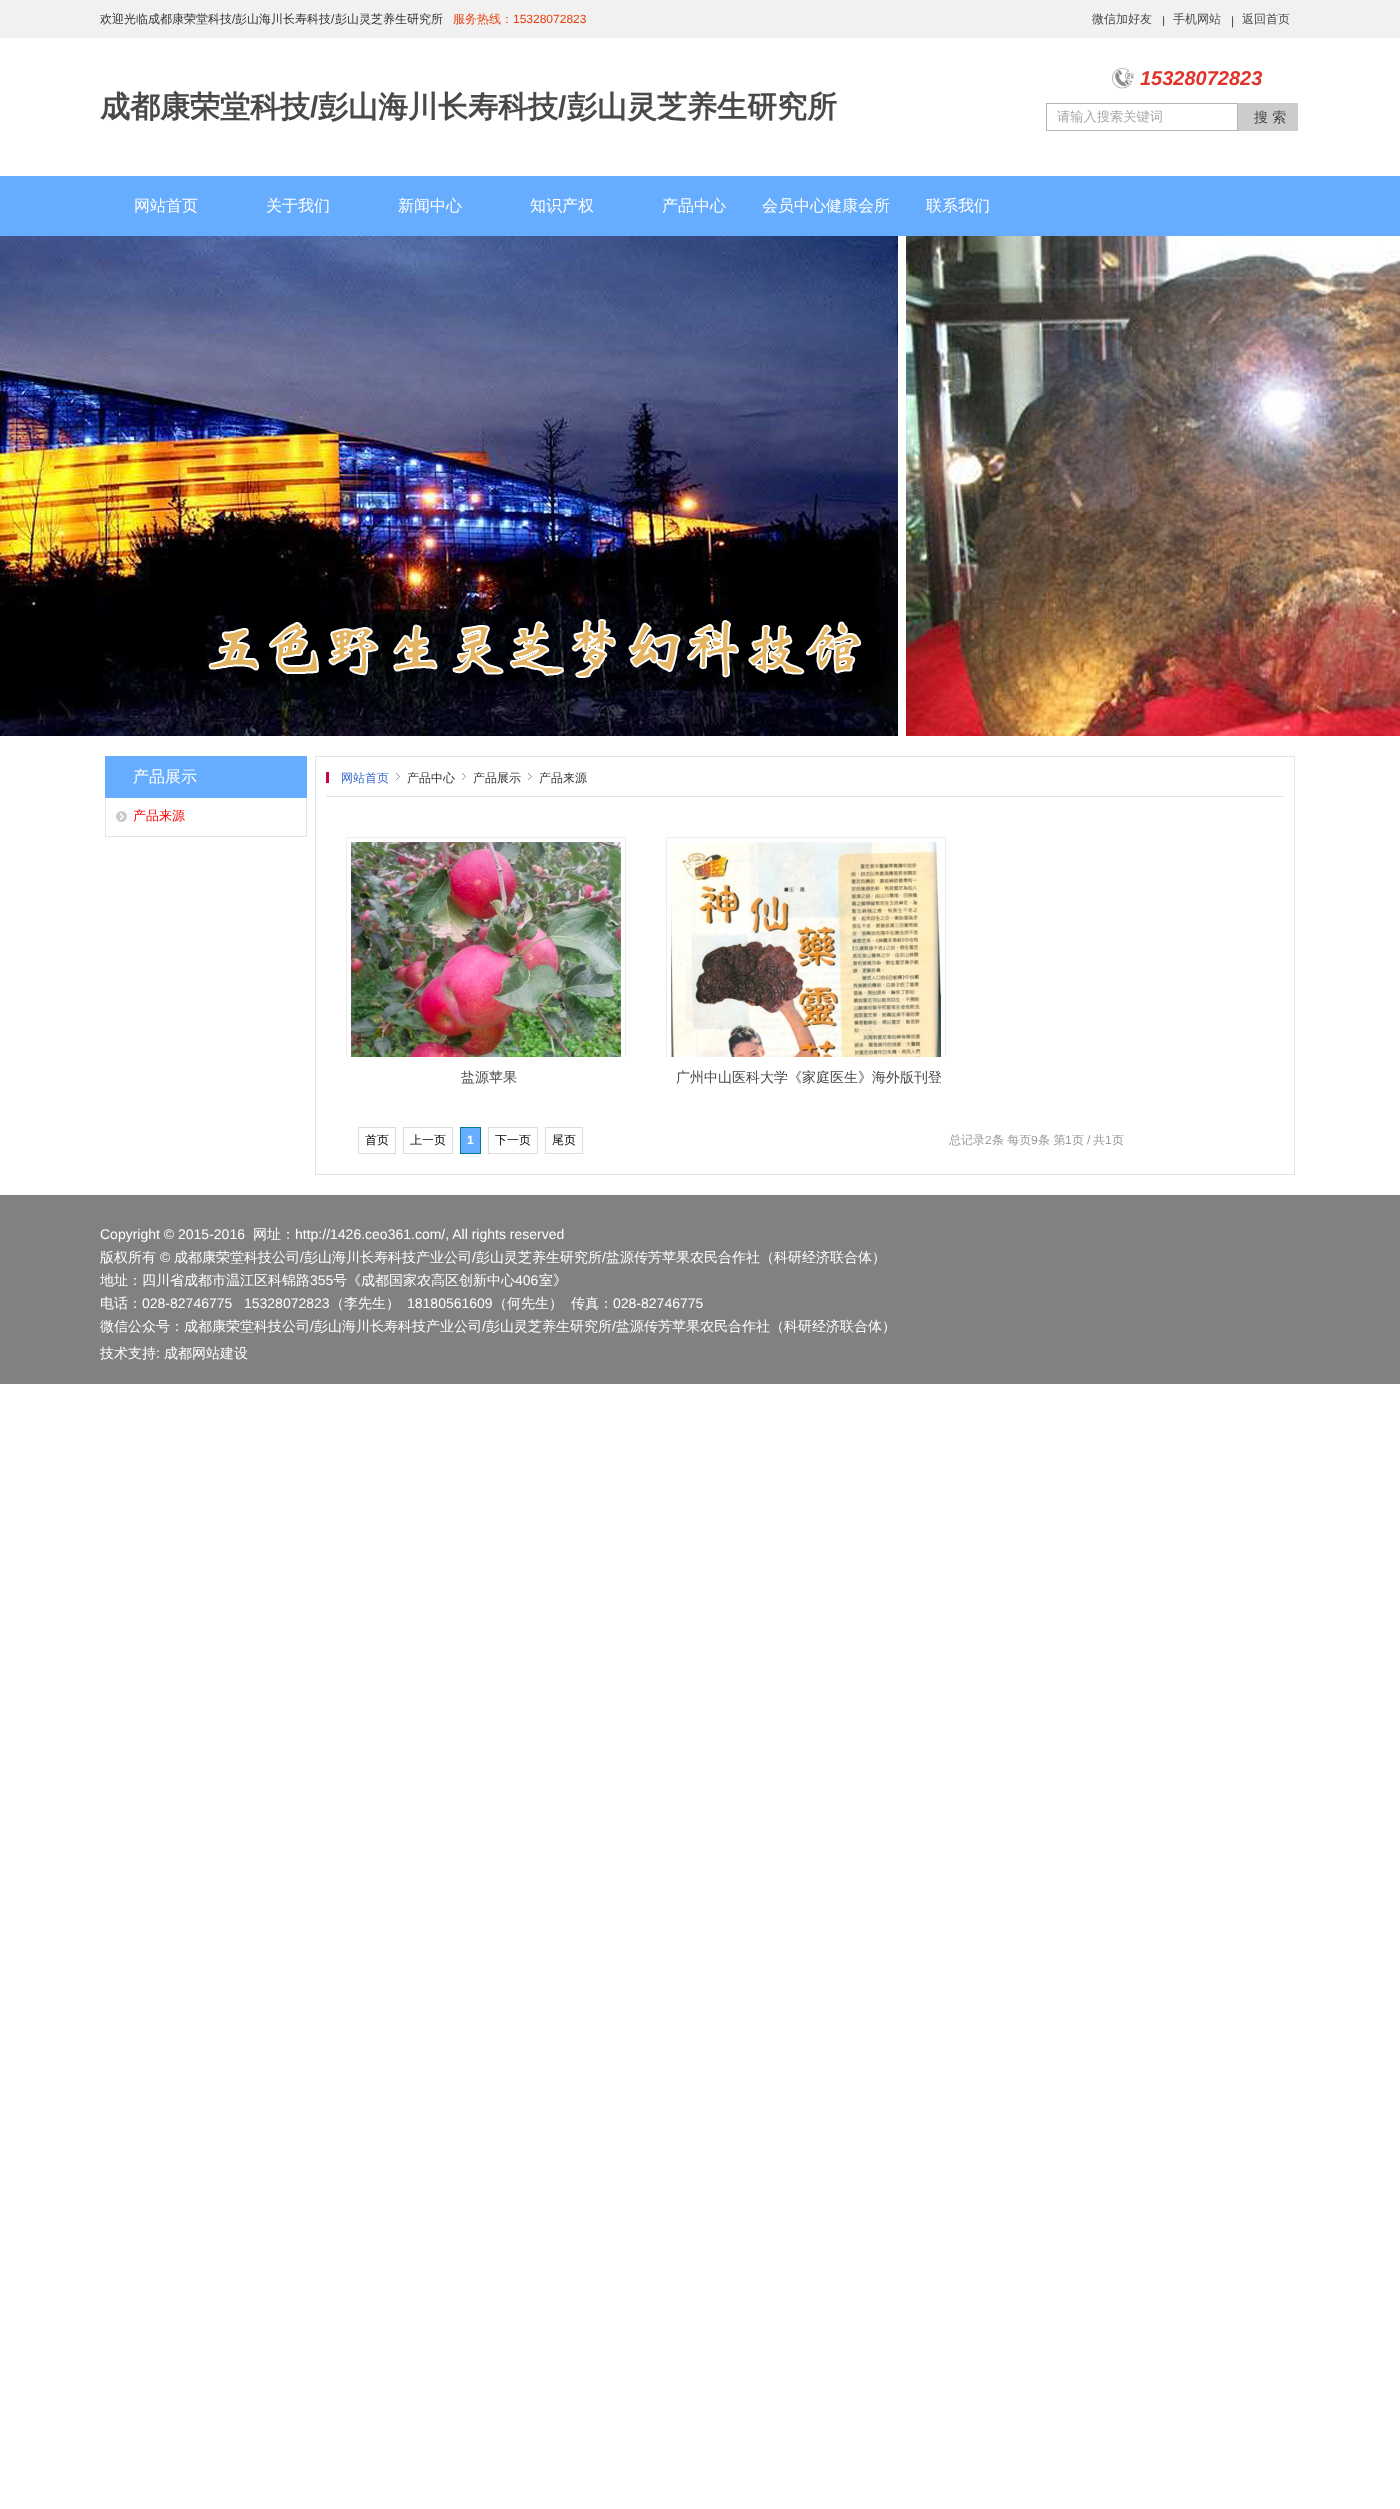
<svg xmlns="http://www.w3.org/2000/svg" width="1400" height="2509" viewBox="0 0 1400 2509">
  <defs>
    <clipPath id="clip1"><rect x="1162" y="0" width="3" height="26"/></clipPath>
    <clipPath id="clip2"><rect x="346" y="837" width="285" height="220"/></clipPath>
    <clipPath id="clip3"><rect x="666" y="837" width="285" height="220"/></clipPath>
  </defs>
  <rect width="100%" height="100%" fill="rgb(255,255,255)"/>
  <rect x="0" y="0" width="1400" height="38" fill="rgb(241,241,241)"/>
  <text x="100" y="23" font-family="WenQuanYi Zen Hei" font-size="12" font-weight="500" fill="rgb(50,50,50)">欢迎光临成都康荣堂科技</text>
  <text x="232" y="23" font-family="Liberation Sans" font-size="12" fill="rgb(50,50,50)">/</text>
  <text x="235" y="23" font-family="WenQuanYi Zen Hei" font-size="12" font-weight="500" fill="rgb(50,50,50)">彭山海川长寿科技</text>
  <text x="331" y="23" font-family="Liberation Sans" font-size="12" fill="rgb(50,50,50)">/</text>
  <text x="335" y="23" font-family="WenQuanYi Zen Hei" font-size="12" font-weight="500" fill="rgb(50,50,50)">彭山灵芝养生研究所</text>
  <text x="453" y="23" font-family="WenQuanYi Zen Hei" font-size="12" font-weight="500" fill="rgb(229,63,13)">服务热线：</text>
  <text x="513" y="23" font-family="Liberation Sans" font-size="12" fill="rgb(229,63,13)">15328072823</text>
  <text x="1092" y="23" font-family="WenQuanYi Zen Hei" font-size="12" font-weight="500" fill="rgb(73,73,73)">微信加好友</text>
  <g clip-path="url(#clip1)">
    <text x="1162" y="25" font-family="Liberation Sans" font-size="12" fill="rgb(73,73,73)">|</text>
  </g>
  <text x="1173" y="23" font-family="WenQuanYi Zen Hei" font-size="12" font-weight="500" fill="rgb(73,73,73)">手机网站</text>
  <text x="1231" y="25" font-family="Liberation Sans" font-size="12" fill="rgb(73,73,73)">|</text>
  <text x="1242" y="23" font-family="WenQuanYi Zen Hei" font-size="12" font-weight="500" fill="rgb(73,73,73)">返回首页</text>
  <text x="100" y="117" font-family="WenQuanYi Zen Hei" font-size="30" font-weight="bold" fill="rgb(73,73,73)">成都康荣堂科技</text>
  <text x="310" y="117" font-family="Liberation Sans" font-size="30" font-weight="bold" fill="rgb(73,73,73)">/</text>
  <text x="318" y="117" font-family="WenQuanYi Zen Hei" font-size="30" font-weight="bold" fill="rgb(73,73,73)">彭山海川长寿科技</text>
  <text x="558" y="117" font-family="Liberation Sans" font-size="30" font-weight="bold" fill="rgb(73,73,73)">/</text>
  <text x="567" y="117" font-family="WenQuanYi Zen Hei" font-size="30" font-weight="bold" fill="rgb(73,73,73)">彭山灵芝养生研究所</text>
  <image x="1112" y="68" width="22" height="21" href="pic1.png"/>
  <text x="1140" y="85" font-family="Liberation Sans" font-size="20" font-weight="bold" font-style="italic" fill="rgb(223,52,43)">15328072823</text>
  <rect x="1046.5" y="103.5" width="191" height="27" fill="none" stroke="rgb(181,181,181)"/>
  <text x="1057" y="121" font-family="WenQuanYi Zen Hei" font-size="13.25" font-weight="500" fill="rgb(170,170,170)">请输入搜索关键词</text>
  <rect x="1238" y="103" width="60" height="28" fill="rgb(204,204,204)"/>
  <text x="1254" y="122" font-family="WenQuanYi Zen Hei" font-size="14" font-weight="500" fill="rgb(73,73,73)">搜 索</text>
  <rect x="0" y="176" width="1400" height="60" fill="rgb(102,172,255)"/>
  <g font-family="WenQuanYi Zen Hei" font-size="16" font-weight="500" fill="rgb(255,255,255)">
    <text x="134" y="211">网站首页</text>
    <text x="266" y="211">关于我们</text>
    <text x="398" y="211">新闻中心</text>
    <text x="530" y="211">知识产权</text>
    <text x="662" y="211">产品中心</text>
    <text x="762" y="211">会员中心健康会所</text>
    <text x="926" y="211">联系我们</text>
  </g>
  <image x="0" y="236" width="1400" height="500" href="pic2.png"/>
  <rect x="105.5" y="756.5" width="201" height="80" fill="none" stroke="rgb(228,228,228)"/>
  <rect x="105" y="756" width="202" height="42" fill="rgb(102,172,255)"/>
  <text x="133" y="782" font-family="WenQuanYi Zen Hei" font-size="16" font-weight="500" fill="rgb(255,255,255)">产品展示</text>
  <image x="116" y="811" width="11" height="11" href="pic3.png"/>
  <text x="133" y="820" font-family="WenQuanYi Zen Hei" font-size="13" font-weight="500" fill="rgb(255,0,0)">产品来源</text>
  <rect x="315.5" y="756.5" width="979" height="418" fill="none" stroke="rgb(228,228,228)"/>
  <rect x="326" y="772" width="3" height="11" fill="rgb(201,3,59)"/>
  <rect x="326" y="796" width="958" height="1" fill="rgb(228,228,228)"/>
  <text x="341" y="782" font-family="WenQuanYi Zen Hei" font-size="12" font-weight="500" fill="rgb(51,102,204)">网站首页</text>
  <image x="396" y="773" width="4" height="7" href="pic4.png"/>
  <text x="407" y="782" font-family="WenQuanYi Zen Hei" font-size="12" font-weight="500" fill="rgb(50,50,50)">产品中心</text>
  <image x="462" y="773" width="4" height="7" href="pic4.png"/>
  <text x="473" y="782" font-family="WenQuanYi Zen Hei" font-size="12" font-weight="500" fill="rgb(50,50,50)">产品展示</text>
  <image x="528" y="773" width="4" height="7" href="pic4.png"/>
  <text x="539" y="782" font-family="WenQuanYi Zen Hei" font-size="12" font-weight="500" fill="rgb(50,50,50)">产品来源</text>
  <g clip-path="url(#clip2)">
    <rect x="346.5" y="837.5" width="279" height="265" fill="none" stroke="rgb(238,238,238)"/>
  </g>
  <image x="351" y="842" width="270" height="215" href="pic5.png"/>
  <text x="461" y="1082" font-family="WenQuanYi Zen Hei" font-size="14" font-weight="500" fill="rgb(73,73,73)">盐源苹果</text>
  <rect x="0" y="1195" width="1400" height="189" fill="rgb(129,129,129)"/>
  <g clip-path="url(#clip3)">
    <rect x="666.5" y="837.5" width="279" height="370" fill="none" stroke="rgb(238,238,238)"/>
  </g>
  <image x="671" y="842" width="270" height="215" href="pic6.png"/>
  <text x="676" y="1082" font-family="WenQuanYi Zen Hei" font-size="14" font-weight="500" fill="rgb(73,73,73)">广州中山医科大学《家庭医生》海外版刊登</text>
  <rect x="358.5" y="1127.5" width="37" height="26" fill="none" stroke="rgb(221,221,221)"/>
  <text x="365" y="1144" font-family="WenQuanYi Zen Hei" font-size="12" font-weight="500" fill="rgb(0,0,0)">首页</text>
  <rect x="403.5" y="1127.5" width="49" height="26" fill="none" stroke="rgb(221,221,221)"/>
  <text x="410" y="1144" font-family="WenQuanYi Zen Hei" font-size="12" font-weight="500" fill="rgb(0,0,0)">上一页</text>
  <rect x="460.5" y="1127.5" width="20" height="26" fill="rgb(102,172,255)" stroke="rgb(0,124,141)"/>
  <text x="467" y="1144" font-family="Liberation Sans" font-size="12" font-weight="bold" fill="rgb(255,255,255)">1</text>
  <rect x="488.5" y="1127.5" width="49" height="26" fill="none" stroke="rgb(221,221,221)"/>
  <text x="495" y="1144" font-family="WenQuanYi Zen Hei" font-size="12" font-weight="500" fill="rgb(0,0,0)">下一页</text>
  <rect x="545.5" y="1127.5" width="37" height="26" fill="none" stroke="rgb(221,221,221)"/>
  <text x="552" y="1144" font-family="WenQuanYi Zen Hei" font-size="12" font-weight="500" fill="rgb(0,0,0)">尾页</text>
  <text x="949" y="1144" font-family="WenQuanYi Zen Hei" font-size="12" font-weight="500" fill="rgb(153,153,153)">总记录</text>
  <text x="985" y="1144" font-family="Liberation Sans" font-size="12" fill="rgb(153,153,153)">2</text>
  <text x="992" y="1144" font-family="WenQuanYi Zen Hei" font-size="12" font-weight="500" fill="rgb(153,153,153)">条 每页</text>
  <text x="1031" y="1144" font-family="Liberation Sans" font-size="12" fill="rgb(153,153,153)">9</text>
  <text x="1038" y="1144" font-family="WenQuanYi Zen Hei" font-size="12" font-weight="500" fill="rgb(153,153,153)">条 第</text>
  <text x="1065" y="1144" font-family="Liberation Sans" font-size="12" fill="rgb(153,153,153)">1</text>
  <text x="1072" y="1144" font-family="WenQuanYi Zen Hei" font-size="12" font-weight="500" fill="rgb(153,153,153)">页</text>
  <text x="1087" y="1144" font-family="Liberation Sans" font-size="12" fill="rgb(153,153,153)">/</text>
  <text x="1093" y="1144" font-family="WenQuanYi Zen Hei" font-size="12" font-weight="500" fill="rgb(153,153,153)">共</text>
  <text x="1105" y="1144" font-family="Liberation Sans" font-size="12" fill="rgb(153,153,153)">1</text>
  <text x="1112" y="1144" font-family="WenQuanYi Zen Hei" font-size="12" font-weight="500" fill="rgb(153,153,153)">页</text>
  <text x="100" y="1239" font-family="Liberation Sans" font-size="14" fill="rgb(255,255,255)">Copyright © 2015-2016</text>
  <text x="253" y="1239" font-family="WenQuanYi Zen Hei" font-size="14" font-weight="500" fill="rgb(255,255,255)">网址：</text>
  <text x="295" y="1239" font-family="Liberation Sans" font-size="14" fill="rgb(255,255,255)">http://1426.ceo361.com/, All rights reserved</text>
  <text x="100" y="1262" font-family="WenQuanYi Zen Hei" font-size="14" font-weight="500" fill="rgb(255,255,255)">版权所有</text>
  <text x="160" y="1262" font-family="Liberation Sans" font-size="14" fill="rgb(255,255,255)">©</text>
  <text x="174" y="1262" font-family="WenQuanYi Zen Hei" font-size="14" font-weight="500" fill="rgb(255,255,255)">成都康荣堂科技公司</text>
  <text x="300" y="1262" font-family="Liberation Sans" font-size="14" fill="rgb(255,255,255)">/</text>
  <text x="304" y="1262" font-family="WenQuanYi Zen Hei" font-size="14" font-weight="500" fill="rgb(255,255,255)">彭山海川长寿科技产业公司</text>
  <text x="472" y="1262" font-family="Liberation Sans" font-size="14" fill="rgb(255,255,255)">/</text>
  <text x="476" y="1262" font-family="WenQuanYi Zen Hei" font-size="14" font-weight="500" fill="rgb(255,255,255)">彭山灵芝养生研究所</text>
  <text x="602" y="1262" font-family="Liberation Sans" font-size="14" fill="rgb(255,255,255)">/</text>
  <g font-family="WenQuanYi Zen Hei" font-size="14" font-weight="500" fill="rgb(255,255,255)">
    <text x="606" y="1262">盐源传芳苹果农民合作社（科研经济联合体）</text>
    <text x="100" y="1285">地址：四川省成都市温江区科锦路</text>
  </g>
  <text x="310" y="1285" font-family="Liberation Sans" font-size="14" fill="rgb(255,255,255)">355</text>
  <text x="333" y="1285" font-family="WenQuanYi Zen Hei" font-size="14" font-weight="500" fill="rgb(255,255,255)">号《成都国家农高区创新中心</text>
  <text x="515" y="1285" font-family="Liberation Sans" font-size="14" fill="rgb(255,255,255)">406</text>
  <g font-family="WenQuanYi Zen Hei" font-size="14" font-weight="500" fill="rgb(255,255,255)">
    <text x="539" y="1285">室》</text>
    <text x="100" y="1308">电话：</text>
  </g>
  <text x="142" y="1308" font-family="Liberation Sans" font-size="14" fill="rgb(255,255,255)" xml:space="preserve">028-82746775   15328072823</text>
  <text x="330" y="1308" font-family="WenQuanYi Zen Hei" font-size="14" font-weight="500" fill="rgb(255,255,255)">（李先生）</text>
  <text x="407" y="1308" font-family="Liberation Sans" font-size="14" fill="rgb(255,255,255)">18180561609</text>
  <g font-family="WenQuanYi Zen Hei" font-size="14" font-weight="500" fill="rgb(255,255,255)">
    <text x="493" y="1308">（何先生）</text>
    <text x="571" y="1308">传真：</text>
  </g>
  <text x="613" y="1308" font-family="Liberation Sans" font-size="14" fill="rgb(255,255,255)">028-82746775</text>
  <text x="100" y="1331" font-family="WenQuanYi Zen Hei" font-size="14" font-weight="500" fill="rgb(255,255,255)">微信公众号：成都康荣堂科技公司</text>
  <text x="310" y="1331" font-family="Liberation Sans" font-size="14" fill="rgb(255,255,255)">/</text>
  <text x="314" y="1331" font-family="WenQuanYi Zen Hei" font-size="14" font-weight="500" fill="rgb(255,255,255)">彭山海川长寿科技产业公司</text>
  <text x="482" y="1331" font-family="Liberation Sans" font-size="14" fill="rgb(255,255,255)">/</text>
  <text x="486" y="1331" font-family="WenQuanYi Zen Hei" font-size="14" font-weight="500" fill="rgb(255,255,255)">彭山灵芝养生研究所</text>
  <text x="612" y="1331" font-family="Liberation Sans" font-size="14" fill="rgb(255,255,255)">/</text>
  <g font-family="WenQuanYi Zen Hei" font-size="14" font-weight="500" fill="rgb(255,255,255)">
    <text x="616" y="1331">盐源传芳苹果农民合作社（科研经济联合体）</text>
    <text x="100" y="1358">技术支持</text>
  </g>
  <text x="156" y="1358" font-family="Liberation Sans" font-size="14" fill="rgb(255,255,255)">:</text>
  <text x="164" y="1358" font-family="WenQuanYi Zen Hei" font-size="14" font-weight="500" fill="rgb(255,255,255)">成都网站建设</text>
</svg>
